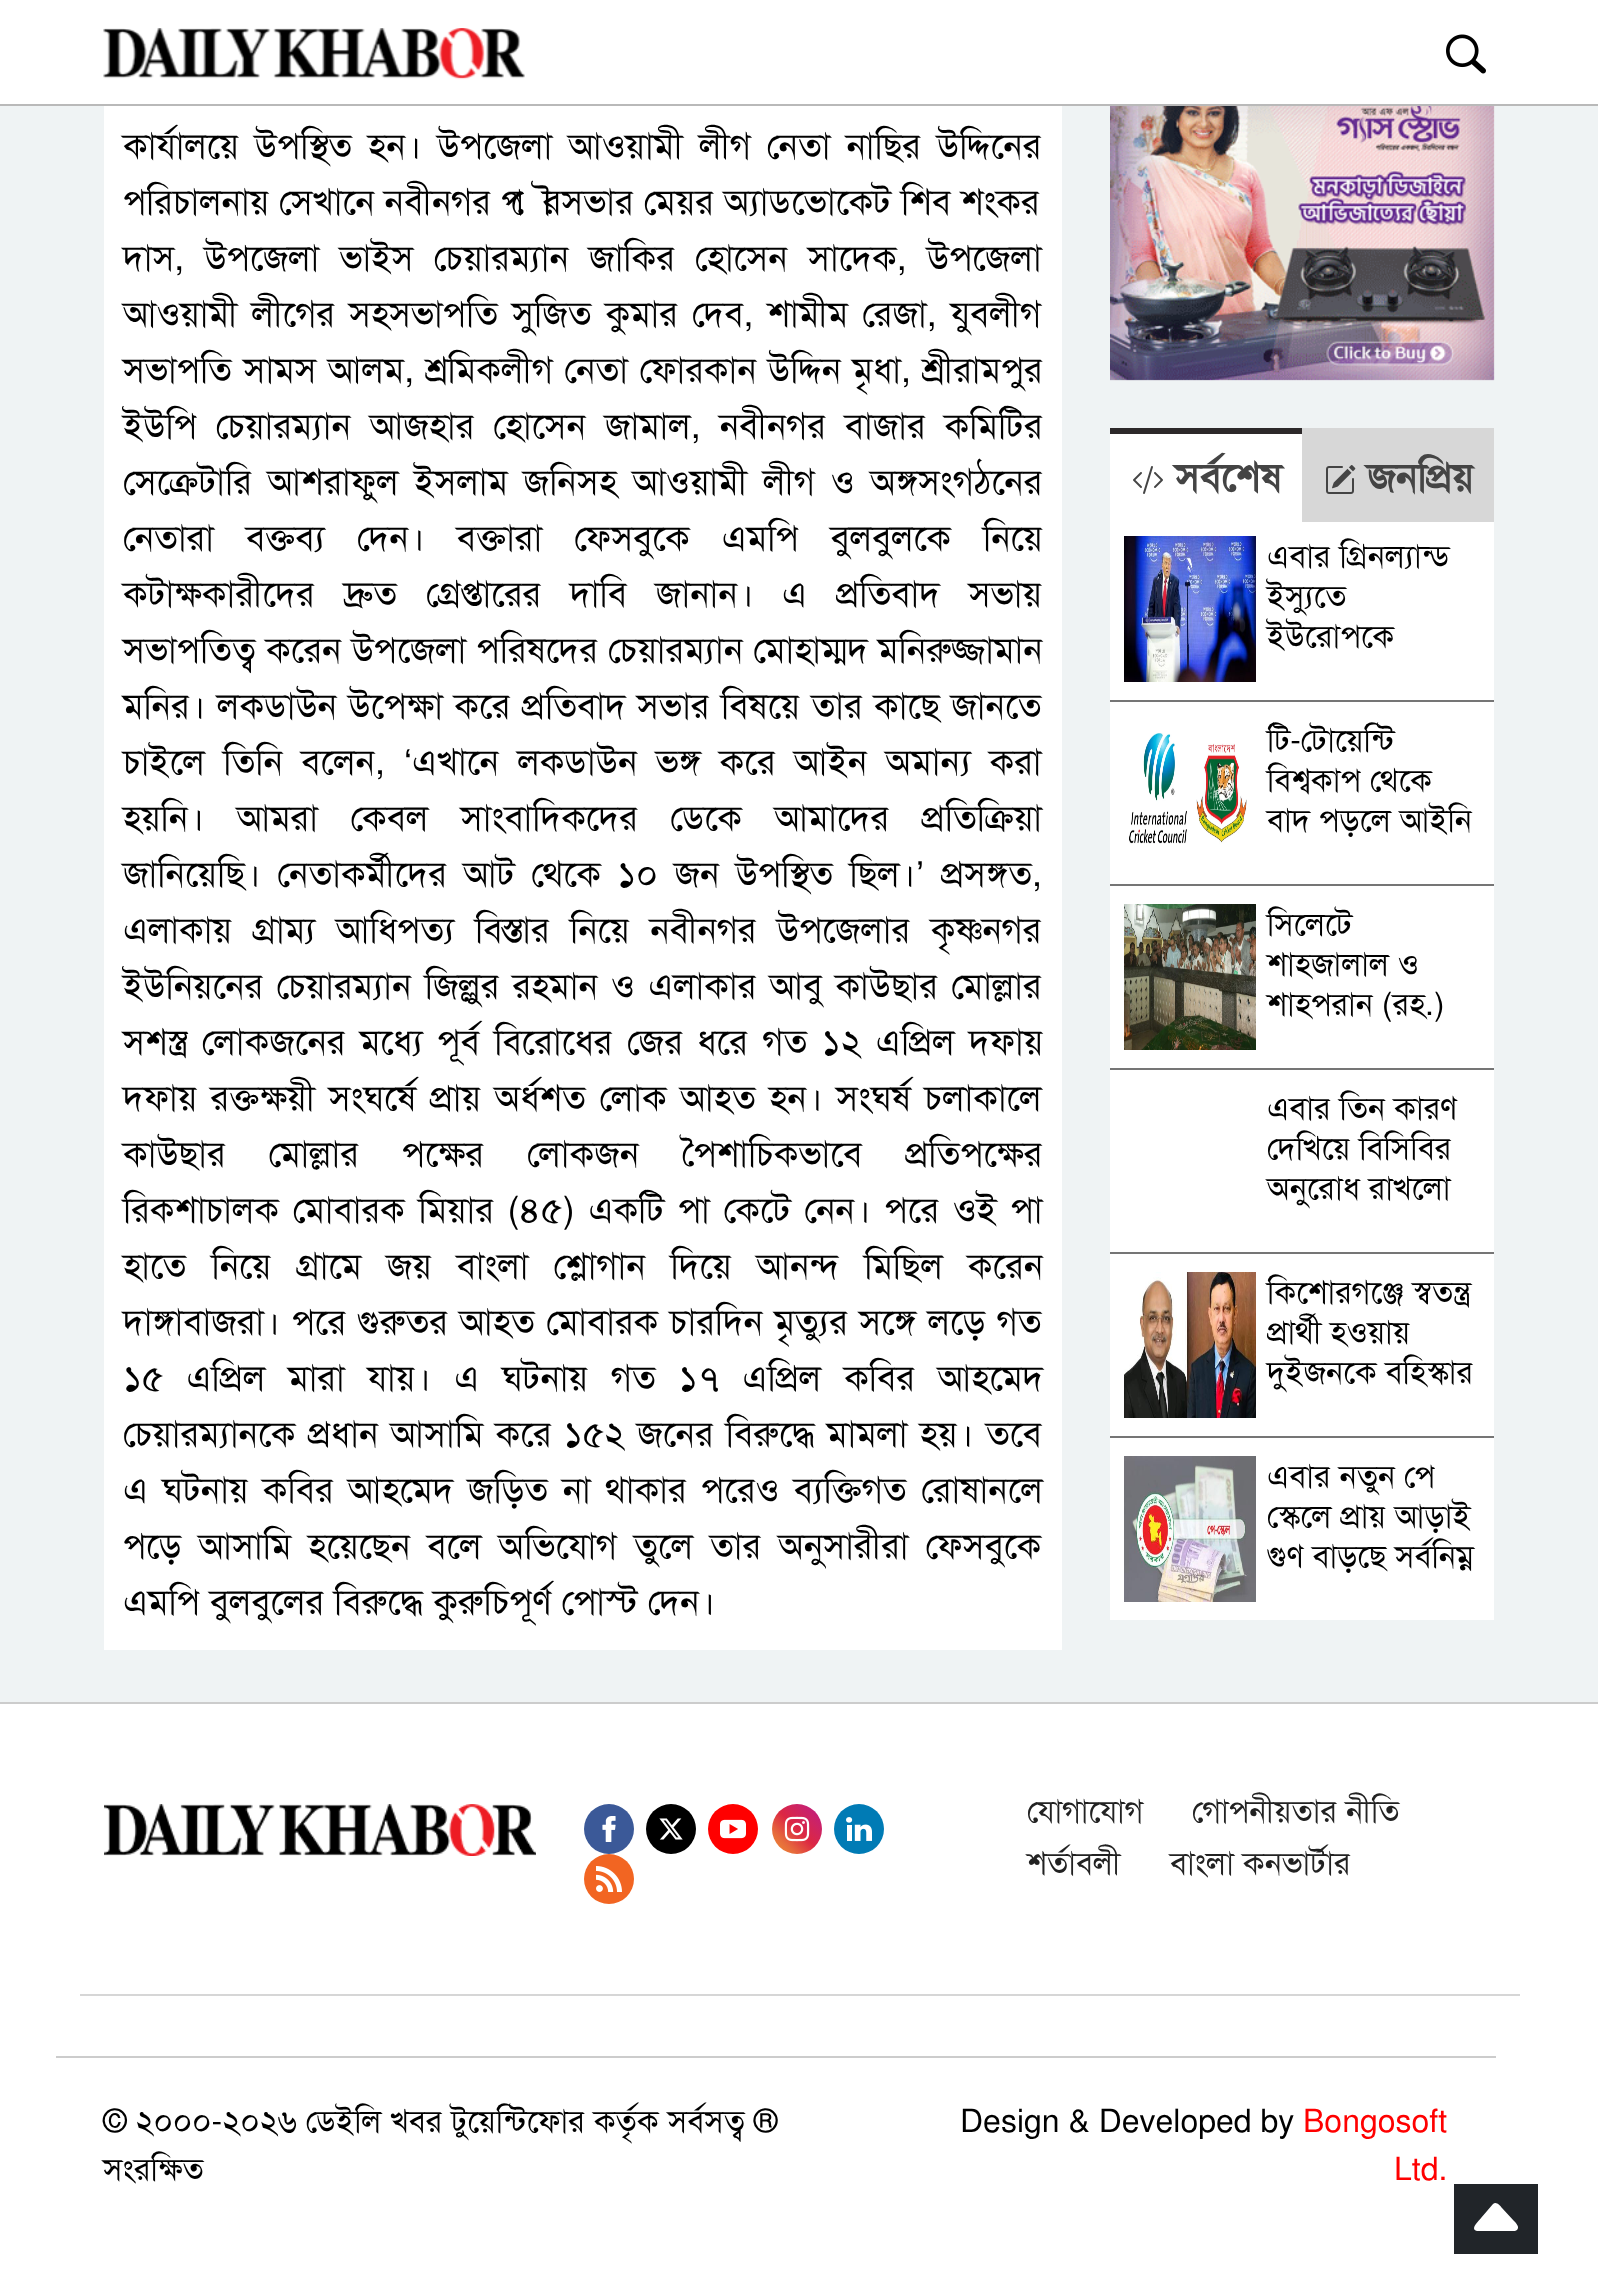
<svg xmlns="http://www.w3.org/2000/svg" width="1598" height="2283" viewBox="0 0 1598 2283">
  <defs>
    <linearGradient id="g1" gradientUnits="userSpaceOnUse" x1="772" y1="1854" x2="822" y2="1804"><stop offset="0" stop-color="rgb(240,148,51)"/><stop offset="0.25" stop-color="rgb(230,104,60)"/><stop offset="0.5" stop-color="rgb(220,39,67)"/><stop offset="0.75" stop-color="rgb(204,35,102)"/><stop offset="1" stop-color="rgb(188,24,136)"/></linearGradient>
  </defs>
  <rect width="100%" height="100%" fill="rgb(239,243,244)"/>
  <rect x="0" y="0" width="1598" height="104" fill="rgb(255,255,255)"/>
  <rect x="0" y="104" width="1598" height="2" fill="rgb(185,185,185)"/>
  <image x="103" y="28" width="422" height="52" href="pic1.png"/>
  <image x="1446" y="34" width="40" height="40" href="pic2.png"/>
  <rect x="104" y="106" width="958" height="1544" fill="rgb(255,255,255)"/>
  <g font-family="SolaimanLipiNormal" font-size="36" fill="rgb(0,0,0)">
    <text>
      <tspan x="123" y="158" word-spacing="6">কার্যালয়ে উপস্থিত হন। উপজেলা আওয়ামী লীগ নেতা নাছির উদ্দিনের</tspan>
      <tspan x="123" y="214">পরিচালনায় সেখানে নবীনগর পৌরসভার মেয়র অ্যাডভোকেট শিব শংকর</tspan>
      <tspan x="123" y="270" word-spacing="10.25">দাস, উপজেলা ভাইস চেয়ারম্যান জাকির হোসেন সাদেক, উপজেলা</tspan>
      <tspan x="123" y="326" word-spacing="4">আওয়ামী লীগের সহসভাপতি সুজিত কুমার দেব, শামীম রেজা, যুবলীগ</tspan>
      <tspan x="123" y="382" word-spacing="1.5">সভাপতি সামস আলম, শ্রমিকলীগ নেতা ফোরকান উদ্দিন মৃধা, শ্রীরামপুর</tspan>
      <tspan x="123" y="438" word-spacing="9">ইউপি চেয়ারম্যান আজহার হোসেন জামাল, নবীনগর বাজার কমিটির</tspan>
      <tspan x="123" y="494" word-spacing="5.75">সেক্রেটারি আশরাফুল ইসলাম জনিসহ আওয়ামী লীগ ও অঙ্গসংগঠনের</tspan>
      <tspan x="123" y="550" word-spacing="22">নেতারা বক্তব্য দেন। বক্তারা ফেসবুকে এমপি বুলবুলকে নিয়ে</tspan>
      <tspan x="123" y="606" word-spacing="19">কটাক্ষকারীদের দ্রুত গ্রেপ্তারের দাবি জানান।</tspan>
    </text>
    <text x="782" y="606" word-spacing="19">এ প্রতিবাদ সভায়</text>
    <text>
      <tspan x="123" y="662" word-spacing="0.25">সভাপতিত্ব করেন উপজেলা পরিষদের চেয়ারম্যান মোহাম্মদ মনিরুজ্জামান</tspan>
      <tspan x="123" y="718" word-spacing="1.5">মনির। লকডাউন উপেক্ষা করে প্রতিবাদ সভার বিষয়ে তার কাছে জানতে</tspan>
      <tspan x="123" y="774" word-spacing="8.5">চাইলে তিনি বলেন,</tspan>
    </text>
  </g>
  <text x="404" y="774" font-family="Liberation Sans" font-size="36" fill="rgb(0,0,0)">‘</text>
  <g font-family="SolaimanLipiNormal" font-size="36" fill="rgb(0,0,0)">
    <text x="412" y="774" word-spacing="8.5">এখানে লকডাউন ভঙ্গ করে আইন অমান্য করা</text>
    <text>
      <tspan x="123" y="830" word-spacing="22.5">হয়নি। আমরা কেবল সাংবাদিকদের ডেকে আমাদের প্রতিক্রিয়া</tspan>
      <tspan x="123" y="886" word-spacing="6.5">জানিয়েছি। নেতাকর্মীদের আট থেকে ১০ জন উপস্থিত ছিল।</tspan>
    </text>
  </g>
  <text x="916" y="886" font-family="Liberation Sans" font-size="36" fill="rgb(0,0,0)">’</text>
  <g font-family="SolaimanLipiNormal" font-size="36" fill="rgb(0,0,0)">
    <text x="941" y="886">প্রসঙ্গত,</text>
    <text>
      <tspan x="123" y="942" word-spacing="10.5">এলাকায় গ্রাম্য আধিপত্য বিস্তার নিয়ে নবীনগর উপজেলার কৃষ্ণনগর</tspan>
      <tspan x="123" y="998" word-spacing="3.25">ইউনিয়নের চেয়ারম্যান জিল্লুর রহমান ও এলাকার আবু কাউছার মোল্লার</tspan>
      <tspan x="123" y="1054" word-spacing="4.5">সশস্ত্র লোকজনের মধ্যে পূর্ব বিরোধের জের ধরে গত ১২ এপ্রিল দফায়</tspan>
      <tspan x="123" y="1110" word-spacing="3.5">দফায় রক্তক্ষয়ী সংঘর্ষে প্রায় অর্ধশত লোক আহত হন। সংঘর্ষ চলাকালে</tspan>
      <tspan x="123" y="1166" word-spacing="33">কাউছার মোল্লার পক্ষের লোকজন পৈশাচিকভাবে প্রতিপক্ষের</tspan>
      <tspan x="123" y="1222" word-spacing="3.75">রিকশাচালক মোবারক মিয়ার (৪৫) একটি পা কেটে নেন। পরে ওই পা</tspan>
      <tspan x="123" y="1278" word-spacing="15">হাতে নিয়ে গ্রামে জয় বাংলা শ্লোগান দিয়ে আনন্দ মিছিল করেন</tspan>
      <tspan x="123" y="1334" word-spacing="1.5">দাঙ্গাবাজরা। পরে গুরুতর আহত মোবারক চারদিন মৃত্যুর সঙ্গে লড়ে গত</tspan>
      <tspan x="123" y="1390" word-spacing="13">১৫ এপ্রিল মারা যায়। এ ঘটনায় গত ১৭ এপ্রিল কবির আহমেদ</tspan>
      <tspan x="123" y="1446" word-spacing="2.25">চেয়ারম্যানকে প্রধান আসামি করে ১৫২ জনের বিরুদ্ধে মামলা হয়।</tspan>
    </text>
    <text x="986" y="1446">তবে</text>
    <text>
      <tspan x="123" y="1502" word-spacing="4.5">এ ঘটনায় কবির আহমেদ জড়িত না থাকার পরেও ব্যক্তিগত রোষানলে</tspan>
      <tspan x="123" y="1558" word-spacing="7">পড়ে আসামি হয়েছেন বলে অভিযোগ তুলে তার অনুসারীরা ফেসবুকে</tspan>
      <tspan x="123" y="1614">এমপি বুলবুলের বিরুদ্ধে কুরুচিপূর্ণ পোস্ট দেন।</tspan>
    </text>
  </g>
  <image x="1110" y="106" width="385" height="275" href="pic3.png"/>
  <rect x="1110" y="434" width="192" height="88" fill="rgb(255,255,255)"/>
  <rect x="1110" y="428" width="192" height="6" fill="rgb(45,41,42)"/>
  <image x="1133" y="466" width="30" height="28" href="pic4.png"/>
  <text x="1175" y="491" font-family="SolaimanLipiNormal" font-size="40" font-weight="bold" fill="rgb(68,68,68)">সর্বশেষ</text>
  <rect x="1302" y="428" width="192" height="94" fill="rgb(215,215,215)"/>
  <image x="1326" y="465" width="30" height="29" href="pic5.png"/>
  <text x="1367" y="491" font-family="SolaimanLipiNormal" font-size="40" font-weight="bold" fill="rgb(68,68,68)">জনপ্রিয়</text>
  <rect x="1110" y="522" width="384" height="1098" fill="rgb(255,255,255)"/>
  <rect x="1110" y="700" width="384" height="2" fill="rgb(117,117,117)"/>
  <image x="1124" y="536" width="132" height="146" href="pic6.png"/>
  <g font-family="SolaimanLipiNormal" font-size="32" fill="rgb(0,0,0)">
    <text>
      <tspan x="1267" y="567">এবার গ্রিনল্যান্ড</tspan>
      <tspan x="1267" y="607">ইস্যুতে</tspan>
      <tspan x="1267" y="647">ইউরোপকে</tspan>
    </text>
  </g>
  <rect x="1110" y="884" width="384" height="2" fill="rgb(117,117,117)"/>
  <image x="1129" y="733" width="118" height="111" href="pic7.png"/>
  <g font-family="SolaimanLipiNormal" font-size="32" fill="rgb(0,0,0)">
    <text>
      <tspan x="1267" y="751">টি-টোয়েন্টি</tspan>
      <tspan x="1267" y="791">বিশ্বকাপ থেকে</tspan>
      <tspan x="1267" y="831">বাদ পড়লে আইনি</tspan>
    </text>
  </g>
  <rect x="1110" y="1068" width="384" height="2" fill="rgb(117,117,117)"/>
  <image x="1124" y="904" width="132" height="146" href="pic8.png"/>
  <g font-family="SolaimanLipiNormal" font-size="32" fill="rgb(0,0,0)">
    <text>
      <tspan x="1267" y="935">সিলেটে</tspan>
      <tspan x="1267" y="975">শাহজালাল ও</tspan>
      <tspan x="1267" y="1015">শাহপরান (রহ.)</tspan>
    </text>
  </g>
  <rect x="1110" y="1252" width="384" height="2" fill="rgb(117,117,117)"/>
  <g font-family="SolaimanLipiNormal" font-size="32" fill="rgb(0,0,0)">
    <text>
      <tspan x="1267" y="1119">এবার তিন কারণ</tspan>
      <tspan x="1267" y="1159">দেখিয়ে বিসিবির</tspan>
      <tspan x="1267" y="1199">অনুরোধ রাখলো</tspan>
    </text>
  </g>
  <rect x="1110" y="1436" width="384" height="2" fill="rgb(117,117,117)"/>
  <image x="1124" y="1272" width="132" height="146" href="pic9.png"/>
  <g font-family="SolaimanLipiNormal" font-size="32" fill="rgb(0,0,0)">
    <text>
      <tspan x="1267" y="1303">কিশোরগঞ্জে স্বতন্ত্র</tspan>
      <tspan x="1267" y="1343">প্রার্থী হওয়ায়</tspan>
      <tspan x="1267" y="1383">দুইজনকে বহিস্কার</tspan>
    </text>
  </g>
  <image x="1124" y="1456" width="132" height="146" href="pic10.png"/>
  <g font-family="SolaimanLipiNormal" font-size="32" fill="rgb(0,0,0)">
    <text>
      <tspan x="1267" y="1487">এবার নতুন পে</tspan>
      <tspan x="1267" y="1527">স্কেলে প্রায় আড়াই</tspan>
      <tspan x="1267" y="1567">গুণ বাড়ছে সর্বনিম্ন</tspan>
    </text>
  </g>
  <rect x="0" y="1704" width="1598" height="579" fill="rgb(255,255,255)"/>
  <rect x="0" y="1702" width="1598" height="2" fill="rgb(204,204,204)"/>
  <image x="104" y="1804" width="432" height="52" href="pic11.png"/>
  <circle cx="609" cy="1829" r="25" fill="rgb(59,89,152)"/>
  <image x="602" y="1816" width="14" height="26" href="pic12.png"/>
  <circle cx="671" cy="1829" r="25" fill="rgb(0,0,0)"/>
  <image x="659" y="1818" width="24" height="22" href="pic13.png"/>
  <circle cx="733" cy="1829" r="25" fill="rgb(255,0,0)"/>
  <image x="720" y="1819" width="26" height="20" href="pic14.png"/>
  <circle cx="797" cy="1829" r="25" fill="url(#g1)"/>
  <image x="784" y="1816" width="26" height="26" href="pic15.png"/>
  <circle cx="859" cy="1829" r="25" fill="rgb(0,123,181)"/>
  <image x="846" y="1817" width="26" height="24" href="pic16.png"/>
  <circle cx="609" cy="1879" r="25" fill="rgb(242,101,34)"/>
  <image x="596" y="1866" width="26" height="26" href="pic17.png"/>
  <g font-family="SolaimanLipiNormal" font-size="32" fill="rgb(34,34,34)">
    <text x="1027" y="1822">যোগাযোগ</text>
    <text x="1192" y="1822">গোপনীয়তার নীতি</text>
    <text x="1027" y="1874">শর্তাবলী</text>
    <text x="1170" y="1874">বাংলা কনভার্টার</text>
  </g>
  <rect x="80" y="1994" width="1440" height="2" fill="rgb(214,214,214)"/>
  <rect x="56" y="2056" width="1440" height="2" fill="rgb(204,204,204)"/>
  <g font-family="SolaimanLipiNormal" font-size="32" fill="rgb(0,0,0)">
    <text>
      <tspan x="103" y="2132">© ২০০০-২০২৬ ডেইলি খবর টুয়েন্টিফোর কর্তৃক সর্বসত্ব ®</tspan>
      <tspan x="103" y="2180">সংরক্ষিত</tspan>
    </text>
    <text x="960" y="2132">Design &amp; Developed by</text>
  </g>
  <g font-family="SolaimanLipiNormal" font-size="32" fill="rgb(255,0,0)">
    <text x="1303" y="2132">Bongosoft</text>
    <text x="1394" y="2180">Ltd.</text>
  </g>
  <rect x="1454" y="2184" width="84" height="70" fill="rgb(33,37,41)"/>
  <path d="M1493 2204L1481 2218C1480 2220 1469 2229 1477 2231H1515L1517 2230C1520 2227 1516 2223 1514 2221L1502 2208C1500 2205 1496 2201 1493 2204Z" fill="rgb(255,255,255)"/>
</svg>
